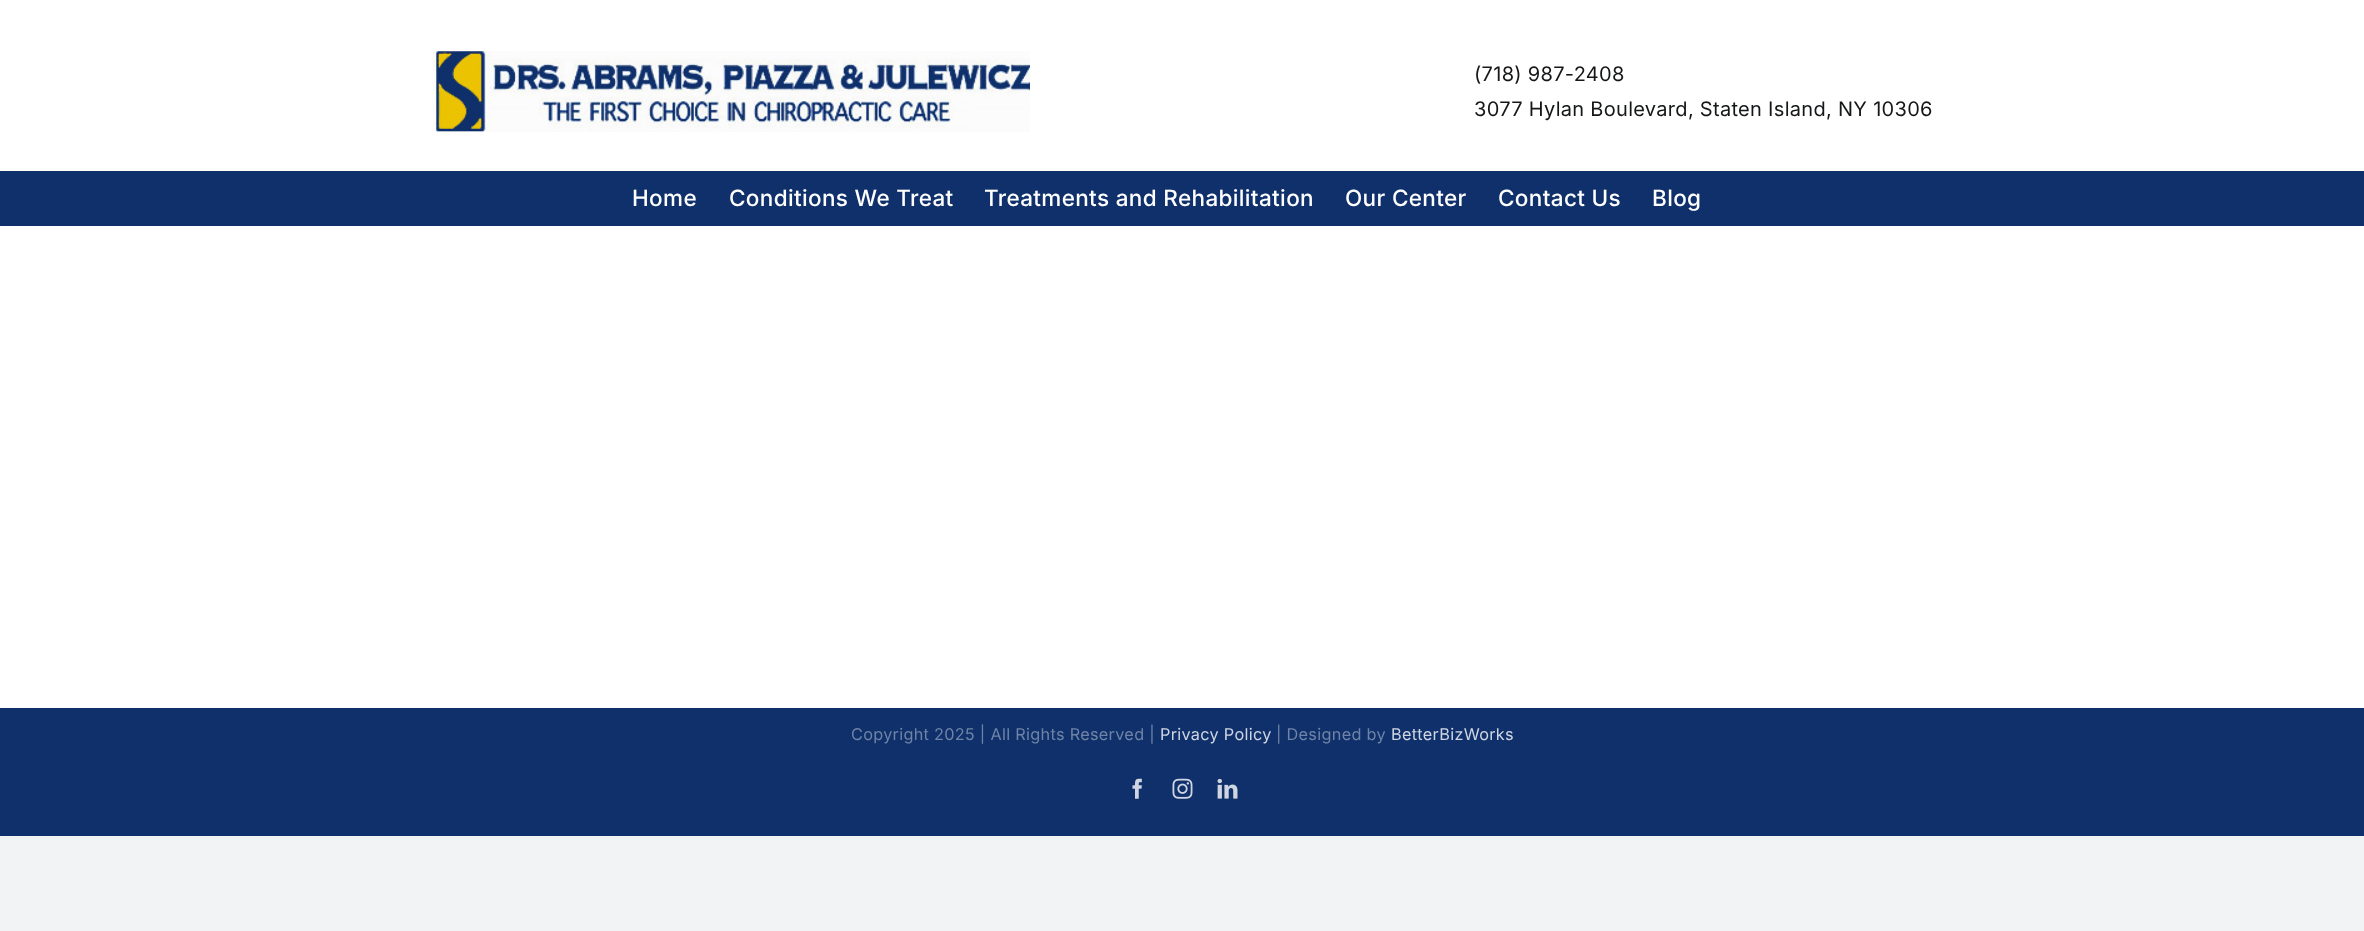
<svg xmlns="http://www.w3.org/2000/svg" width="2364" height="931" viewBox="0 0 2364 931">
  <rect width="100%" height="100%" fill="rgb(242,243,245)"/>
  <rect x="0" y="0" width="2364" height="708" fill="rgb(255,255,255)"/>
  <image x="432" y="51" width="598" height="81" href="pic1.png"/>
  <g font-family="Inter" font-size="20" letter-spacing="0.3" fill="rgb(20,22,23)">
    <text>
      <tspan x="1474" y="81">(718) 987-2408</tspan>
      <tspan x="1474" y="116">3077 Hylan Boulevard, Staten Island, NY 10306</tspan>
    </text>
  </g>
  <rect x="0" y="171" width="2364" height="55" fill="rgb(15,48,107)"/>
  <g font-family="Inter" font-size="22.5" font-weight="500" letter-spacing="0.35" fill="rgb(255,255,255)">
    <text x="632" y="206">Home</text>
    <text x="729" y="206">Conditions We Treat</text>
    <text x="984" y="206">Treatments and Rehabilitation</text>
    <text x="1345" y="206">Our Center</text>
    <text x="1498" y="206">Contact Us</text>
    <text x="1652" y="206">Blog</text>
  </g>
  <rect x="0" y="708" width="2364" height="128" fill="rgb(15,48,107)"/>
  <text x="851" y="740" font-family="Inter" font-size="16.25" letter-spacing="0.3" fill="rgb(111,131,166)">Copyright 2025 | All Rights Reserved |</text>
  <text x="1160" y="740" font-family="Inter" font-size="16.25" letter-spacing="0.3" fill="rgb(207,214,225)">Privacy Policy</text>
  <text x="1276" y="740" font-family="Inter" font-size="16.25" letter-spacing="0.3" fill="rgb(111,131,166)">| Designed by</text>
  <text x="1391" y="740" font-family="Inter" font-size="16.25" letter-spacing="0.3" fill="rgb(207,214,225)">BetterBizWorks</text>
  <image x="1132" y="778" width="10" height="21" href="pic2.png"/>
  <image x="1172" y="778" width="21" height="21" href="pic3.png"/>
  <image x="1217" y="778" width="21" height="21" href="pic4.png"/>
</svg>
